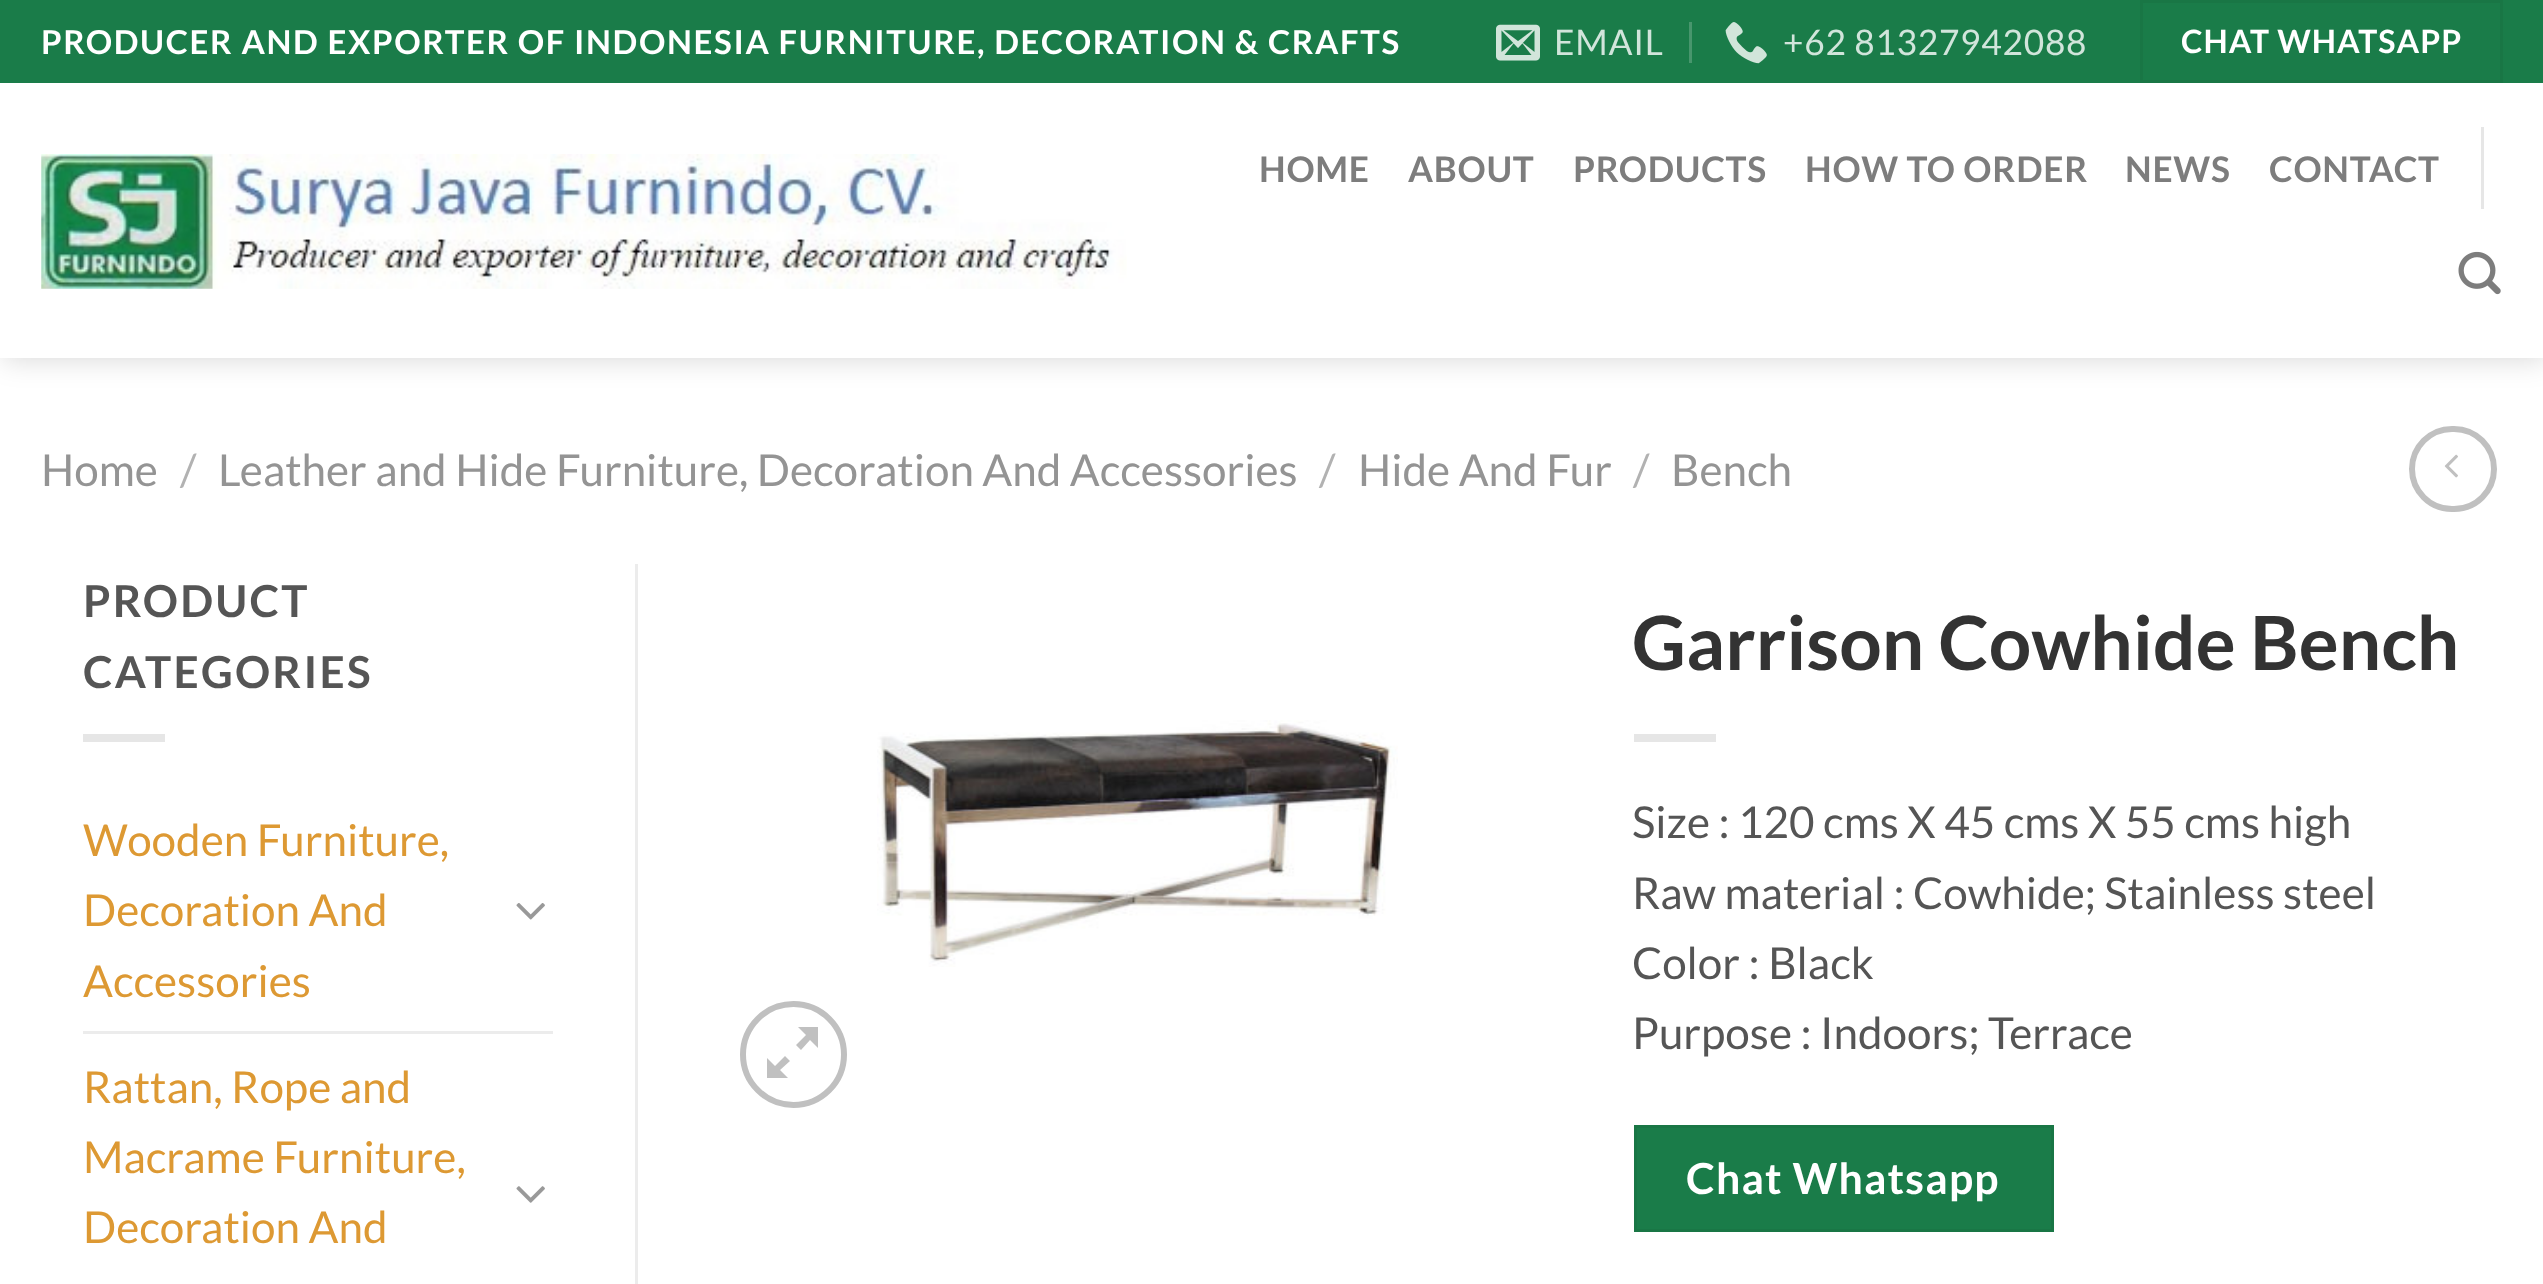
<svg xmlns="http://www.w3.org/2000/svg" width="2543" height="1284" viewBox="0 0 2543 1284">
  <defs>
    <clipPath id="clip1"><path d="M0 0H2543V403H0ZM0 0H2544V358H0Z" clip-rule="evenodd"/></clipPath>
  </defs>
  <rect width="100%" height="100%" fill="rgb(255,255,255)"/>
  <g clip-path="url(#clip1)">
    <rect x="3" y="3" width="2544" height="357" fill="rgba(0,0,0,0.15)" filter="blur(14px)"/>
  </g>
  <rect x="0" y="0" width="2543" height="83" fill="rgb(26,124,73)"/>
  <text x="41" y="54" font-family="Lato" font-size="33" font-weight="bold" letter-spacing="1.65" fill="rgb(255,255,255)">PRODUCER AND EXPORTER OF INDONESIA FURNITURE, DECORATION &amp; CRAFTS</text>
  <image x="1496" y="24" width="44" height="37" href="pic1.png"/>
  <text x="1554" y="55" font-family="Lato" font-size="35.25" letter-spacing="0.75" fill="rgb(209,229,219)">EMAIL</text>
  <rect x="1689" y="22" width="3" height="41" fill="rgb(72,150,109)"/>
  <image x="1725" y="22" width="42" height="42" href="pic2.png"/>
  <text x="1783" y="55" font-family="Lato" font-size="35.25" letter-spacing="0.75" fill="rgb(209,229,219)">+62 81327942088</text>
  <rect x="2141.5" y="1.5" width="360" height="80" fill="none" stroke="rgb(25,118,69)" stroke-width="3"/>
  <text x="2181" y="53" font-family="Lato" font-size="32" font-weight="bold" letter-spacing="1" fill="rgb(255,255,255)">CHAT WHATSAPP</text>
  <image x="41" y="154" width="1086" height="135" href="pic3.png"/>
  <g font-family="Lato" font-size="35.25" font-weight="bold" letter-spacing="0.75" fill="rgb(125,125,125)">
    <text x="1259" y="182">HOME</text>
    <text x="1408" y="182">ABOUT</text>
    <text x="1573" y="182">PRODUCTS</text>
    <text x="1805" y="182">HOW TO ORDER</text>
    <text x="2125" y="182">NEWS</text>
    <text x="2269" y="182">CONTACT</text>
  </g>
  <rect x="2481" y="127" width="3" height="82" fill="rgb(230,230,230)"/>
  <image x="2458" y="251" width="43" height="44" href="pic4.png"/>
  <rect x="0" y="357" width="2543" height="1" fill="rgba(255,255,255,0.9)"/>
  <text x="41" y="486" font-family="Lato" font-size="44" fill="rgb(148,148,148)">Home</text>
  <text x="180" y="486" font-family="Lato" font-size="44" fill="rgb(178,178,178)">/</text>
  <text x="218" y="486" font-family="Lato" font-size="44" fill="rgb(148,148,148)">Leather and Hide Furniture, Decoration And Accessories</text>
  <text x="1319" y="486" font-family="Lato" font-size="44" fill="rgb(178,178,178)">/</text>
  <text x="1358" y="486" font-family="Lato" font-size="44" fill="rgb(148,148,148)">Hide And Fur</text>
  <text x="1633" y="486" font-family="Lato" font-size="44" fill="rgb(178,178,178)">/</text>
  <text x="1671" y="486" font-family="Lato" font-size="44" fill="rgb(148,148,148)">Bench</text>
  <rect x="2412" y="429" width="82" height="80" rx="40" fill="none" stroke="rgb(192,192,192)" stroke-width="6"/>
  <image x="2444" y="454" width="14" height="24" href="pic5.png"/>
  <g font-family="Lato" font-size="44" font-weight="bold" letter-spacing="2.25" fill="rgb(85,85,85)">
    <text>
      <tspan x="83" y="617">PRODUCT</tspan>
      <tspan x="83" y="688">CATEGORIES</tspan>
    </text>
  </g>
  <rect x="83" y="734" width="82" height="8" fill="rgb(230,230,230)"/>
  <g font-family="Lato" font-size="44" fill="rgb(221,153,51)">
    <text>
      <tspan x="83" y="856">Wooden Furniture,</tspan>
      <tspan x="83" y="926">Decoration And</tspan>
      <tspan x="83" y="997">Accessories</tspan>
    </text>
  </g>
  <image x="516" y="903" width="29" height="17" href="pic6.png"/>
  <rect x="83" y="1031" width="470" height="3" fill="rgb(236,236,236)"/>
  <g font-family="Lato" font-size="44" fill="rgb(221,153,51)">
    <text>
      <tspan x="83" y="1103">Rattan, Rope and</tspan>
      <tspan x="83" y="1173">Macrame Furniture,</tspan>
      <tspan x="83" y="1243">Decoration And</tspan>
    </text>
  </g>
  <image x="516" y="1186" width="29" height="17" href="pic7.png"/>
  <rect x="635" y="564" width="3" height="720" fill="rgb(236,236,236)"/>
  <image x="877" y="720" width="521" height="247" href="pic8.png"/>
  <circle cx="793.5" cy="1054.5" r="50.5" fill="none" stroke="rgb(192,192,192)" stroke-width="6"/>
  <path d="M818 1027V1048L810 1040L801 1050L796 1045L806 1035L798 1027ZM790 1061L780 1070L788 1078H767V1058L775 1066L785 1056Z" fill="rgb(192,192,192)"/>
  <text x="1632" y="670" font-family="Lato" font-size="74.75" font-weight="bold" fill="rgb(51,51,51)">Garrison Cowhide Bench</text>
  <rect x="1634" y="734" width="82" height="8" fill="rgb(230,230,230)"/>
  <g font-family="Lato" font-size="44" fill="rgb(85,85,85)">
    <text>
      <tspan x="1632" y="838">Size : 120 cms X 45 cms X 55 cms high</tspan>
      <tspan x="1632" y="909">Raw material : Cowhide; Stainless steel</tspan>
      <tspan x="1632" y="979">Color : Black</tspan>
      <tspan x="1632" y="1049">Purpose : Indoors; Terrace</tspan>
    </text>
  </g>
  <rect x="1635.5" y="1126.5" width="417" height="104" fill="rgb(26,124,73)" stroke="rgb(25,118,69)" stroke-width="3"/>
  <text x="1686" y="1194" font-family="Lato" font-size="42.75" font-weight="bold" letter-spacing="1.25" fill="rgb(255,255,255)">Chat Whatsapp</text>
</svg>
